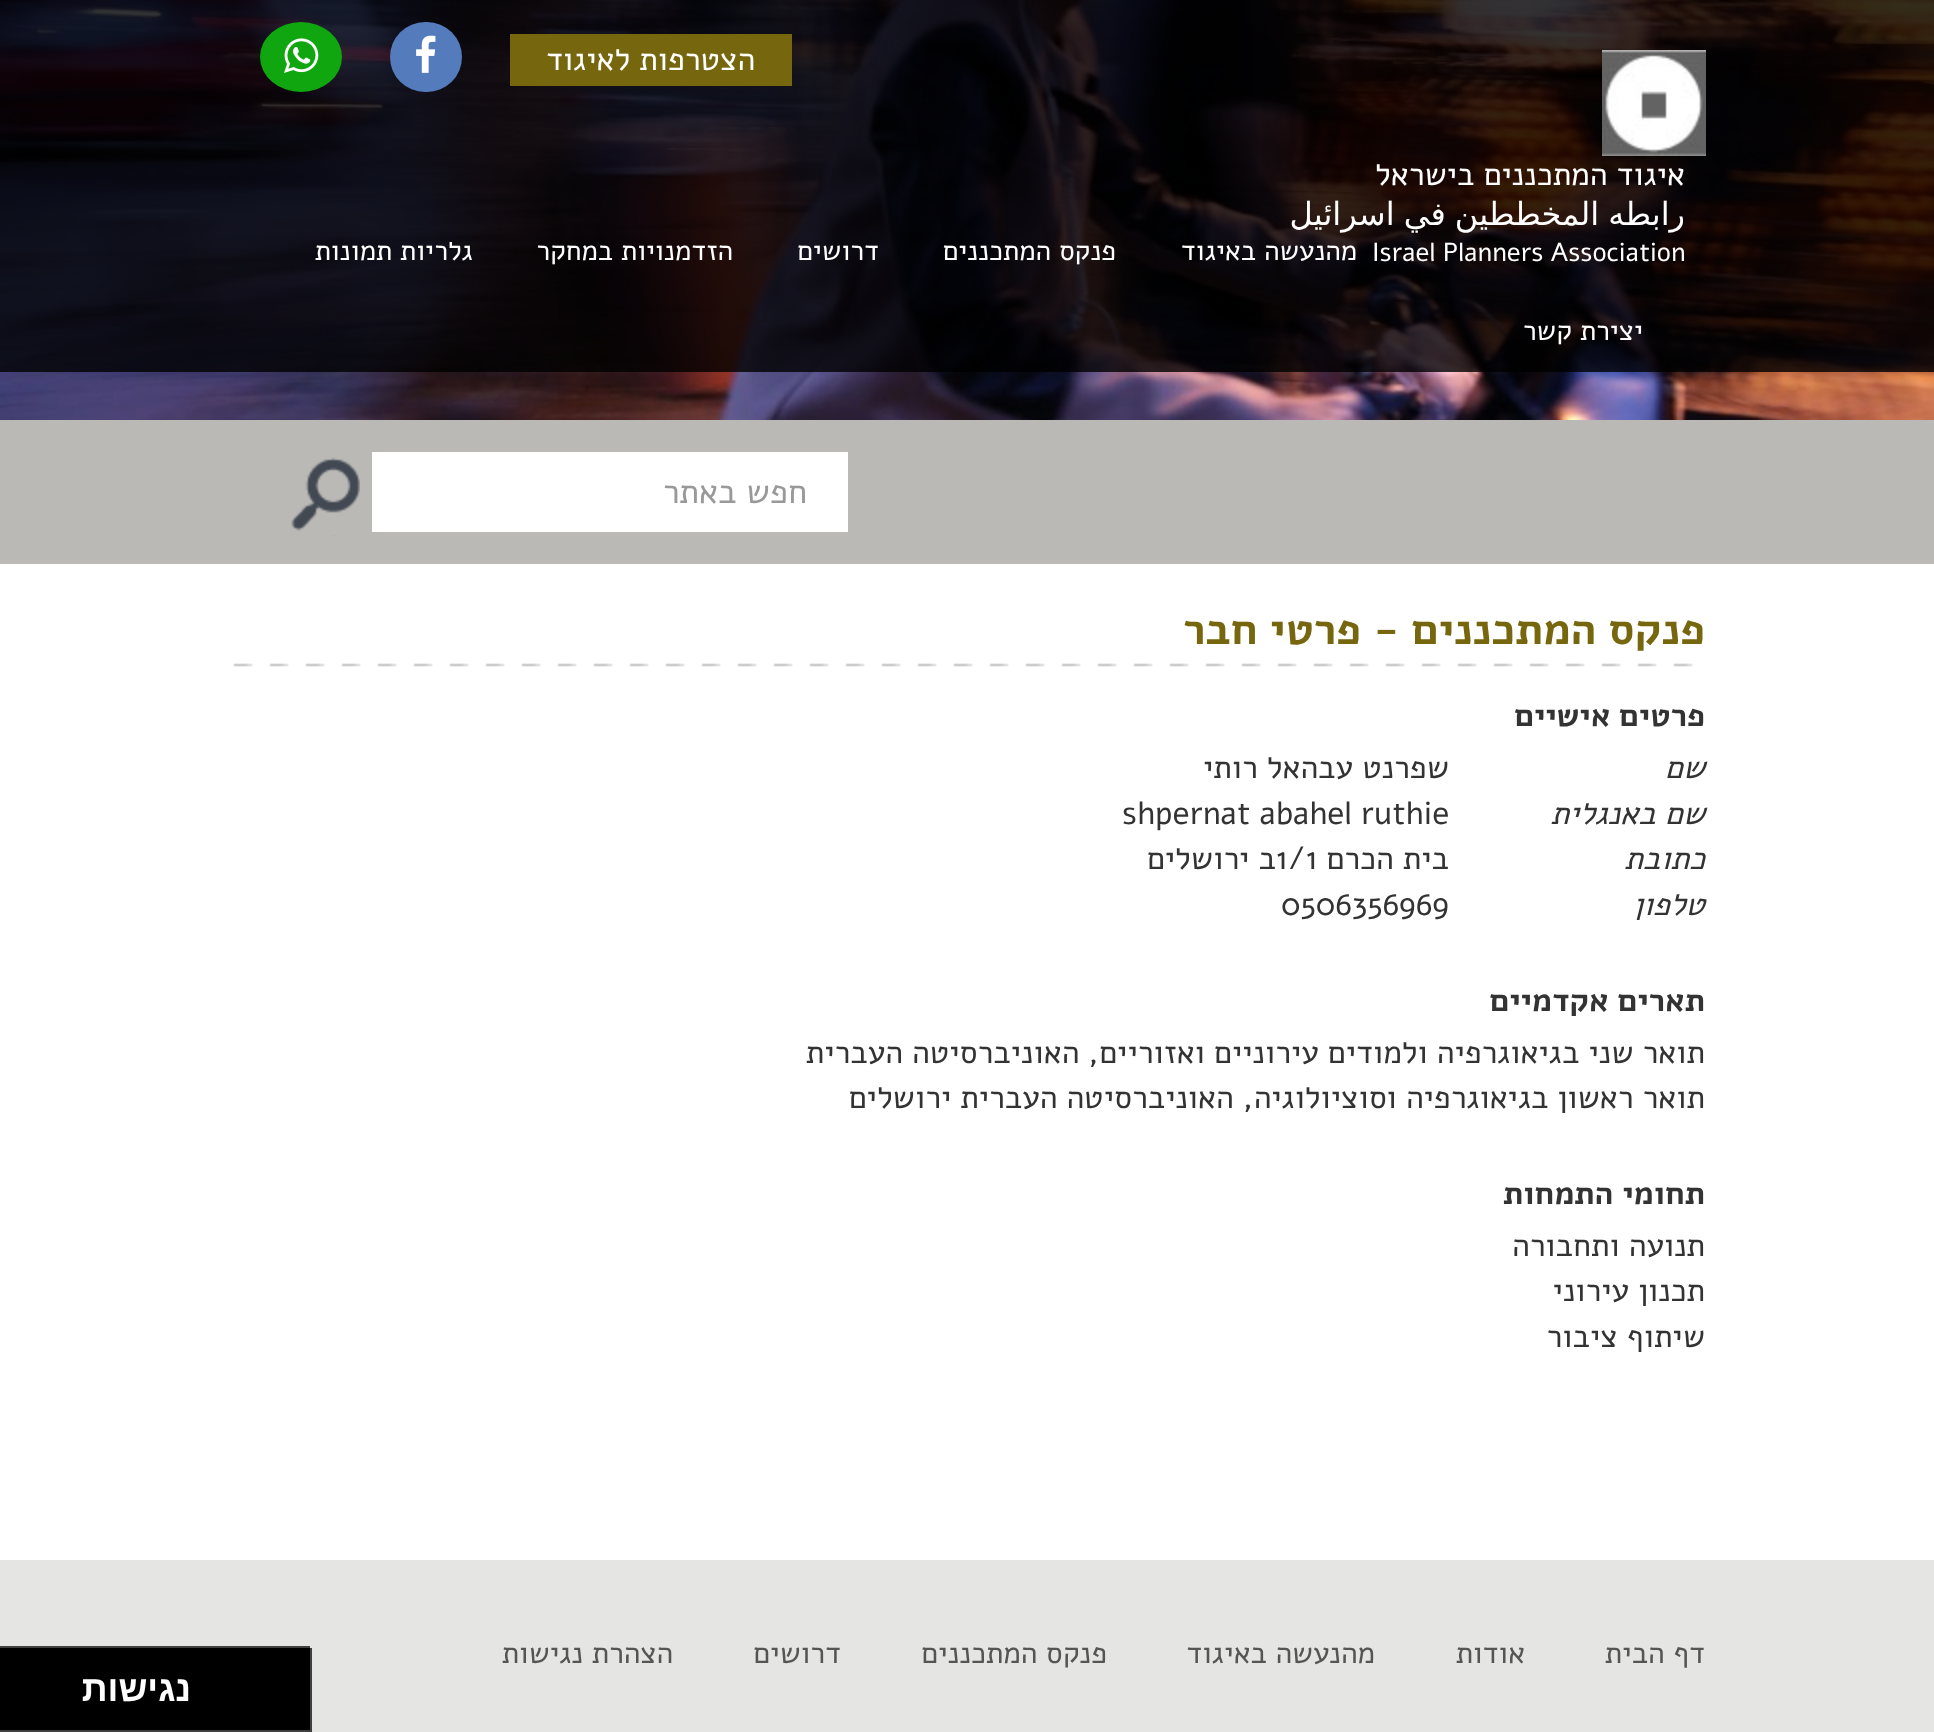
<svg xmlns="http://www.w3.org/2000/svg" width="1934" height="1732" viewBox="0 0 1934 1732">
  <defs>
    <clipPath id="clip1"><rect x="0" y="1648" width="312" height="84"/></clipPath>
  </defs>
  <rect width="100%" height="100%" fill="rgb(255,255,255)"/>
  <image x="0" y="0" width="1934" height="420" href="pic1.png"/>
  <rect x="0" y="0" width="1934" height="372" fill="rgba(0,0,0,0.8)"/>
  <rect x="510" y="34" width="282" height="52" fill="rgb(118,102,14)"/>
  <text x="755" y="70" font-family="Alef" font-size="32" direction="rtl" fill="rgb(255,255,255)">הצטרפות לאיגוד</text>
  <rect x="390" y="22" width="72" height="70" rx="35" fill="rgb(84,123,188)"/>
  <image x="416" y="35" width="20" height="38" href="pic2.png"/>
  <ellipse cx="301" cy="57" rx="41" ry="35" fill="rgb(16,166,15)"/>
  <image x="284" y="38" width="35" height="35" href="pic3.png"/>
  <image x="1602" y="50" width="104" height="106" href="pic4.png"/>
  <text x="1685" y="185" font-family="Alef" font-size="32" direction="rtl" fill="rgb(255,255,255)">איגוד המתכננים בישראל</text>
  <text x="1685" y="225" word-spacing="-1" font-family="DejaVu Sans" font-size="32" direction="rtl" fill="rgb(255,255,255)">رابطه المخططين في اسرائيل</text>
  <text x="1372" y="261" font-family="Alef" font-size="26" fill="rgb(255,255,255)">Israel Planners Association</text>
  <g font-family="Alef" font-size="28" direction="rtl" fill="rgb(255,255,255)">
    <text x="1357" y="260">מהנעשה באיגוד</text>
    <text x="1116" y="260">פנקס המתכננים</text>
    <text x="879" y="260">דרושים</text>
    <text x="733" y="260">הזדמנויות במחקר</text>
    <text x="473" y="260">גלריות תמונות</text>
    <text x="1643" y="340">יצירת קשר</text>
  </g>
  <rect x="0" y="420" width="1934" height="144" fill="rgb(186,185,181)"/>
  <rect x="372" y="452" width="476" height="80" fill="rgb(255,255,255)"/>
  <text x="807" y="503" font-family="Alef" font-size="34" direction="rtl" fill="rgb(153,153,153)">חפש באתר</text>
  <image x="291" y="457" width="69" height="79" href="pic5.png"/>
  <image x="233" y="663" width="1460" height="4" href="pic6.png"/>
  <text x="1705" y="644" font-family="Alef" font-size="44" font-weight="bold" direction="rtl" fill="rgb(118,102,14)">פנקס המתכננים - פרטי חבר</text>
  <text x="1705" y="726" font-family="Alef" font-size="32" font-weight="bold" direction="rtl" fill="rgb(51,51,51)">פרטים אישיים</text>
  <text x="1705" y="778" font-family="Alef" font-size="32" font-style="italic" direction="rtl" fill="rgb(51,51,51)">שם</text>
  <text x="1449" y="778" font-family="Alef" font-size="32" direction="rtl" fill="rgb(51,51,51)">שפרנט עבהאל רותי</text>
  <text x="1705" y="824" font-family="Alef" font-size="32" font-style="italic" direction="rtl" fill="rgb(51,51,51)">שם באנגלית</text>
  <text x="1122" y="824" font-family="Alef" font-size="32" fill="rgb(51,51,51)">shpernat abahel ruthie</text>
  <text x="1705" y="869" font-family="Alef" font-size="32" font-style="italic" direction="rtl" fill="rgb(51,51,51)">כתובת</text>
  <text x="1449" y="869" font-family="Alef" font-size="32" direction="rtl" fill="rgb(51,51,51)">בית הכרם</text>
  <text x="1276" y="869" font-family="Alef" font-size="32" fill="rgb(51,51,51)">1/1</text>
  <text x="1276" y="869" font-family="Alef" font-size="32" direction="rtl" fill="rgb(51,51,51)">ב ירושלים</text>
  <text x="1705" y="915" font-family="Alef" font-size="32" font-style="italic" direction="rtl" fill="rgb(51,51,51)">טלפון</text>
  <text x="1281" y="915" font-family="Alef" font-size="32" fill="rgb(51,51,51)">0506356969</text>
  <text x="1705" y="1011" font-family="Alef" font-size="32" font-weight="bold" direction="rtl" fill="rgb(51,51,51)">תארים אקדמיים</text>
  <g font-family="Alef" font-size="32" direction="rtl" fill="rgb(51,51,51)">
    <text>
      <tspan x="1705" y="1063">תואר שני בגיאוגרפיה ולמודים עירוניים ואזוריים, האוניברסיטה העברית</tspan>
      <tspan x="1705" y="1108">תואר ראשון בגיאוגרפיה וסוציולוגיה, האוניברסיטה העברית ירושלים</tspan>
    </text>
  </g>
  <text x="1705" y="1204" font-family="Alef" font-size="32" font-weight="bold" direction="rtl" fill="rgb(51,51,51)">תחומי התמחות</text>
  <g font-family="Alef" font-size="32" direction="rtl" fill="rgb(51,51,51)">
    <text>
      <tspan x="1705" y="1256">תנועה ותחבורה</tspan>
      <tspan x="1705" y="1301">תכנון עירוני</tspan>
      <tspan x="1705" y="1347">שיתוף ציבור</tspan>
    </text>
  </g>
  <rect x="0" y="1560" width="1934" height="172" fill="rgb(229,229,227)"/>
  <g font-family="Alef" font-size="30" direction="rtl" fill="rgb(85,85,85)">
    <text x="1705" y="1663">דף הבית</text>
    <text x="1525" y="1663">אודות</text>
    <text x="1375" y="1663">מהנעשה באיגוד</text>
    <text x="1107" y="1663">פנקס המתכננים</text>
    <text x="841" y="1663">דרושים</text>
    <text x="673" y="1663">הצהרת נגישות</text>
  </g>
  <path d="M-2 1646V1730H0V1648H310V1646Z" fill="rgb(64,64,64)"/>
  <rect x="0" y="1648" width="310" height="82" fill="rgb(0,0,0)"/>
  <g clip-path="url(#clip1)">
    <path d="M-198 1450H510V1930H-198ZM-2 1646H310V1730H-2Z" fill="rgb(64,64,64)" fill-rule="evenodd"/>
  </g>
  <text x="191" y="1701" font-family="Liberation Sans" font-size="36" font-weight="bold" direction="rtl" fill="rgb(255,255,255)">נגישות</text>
</svg>
